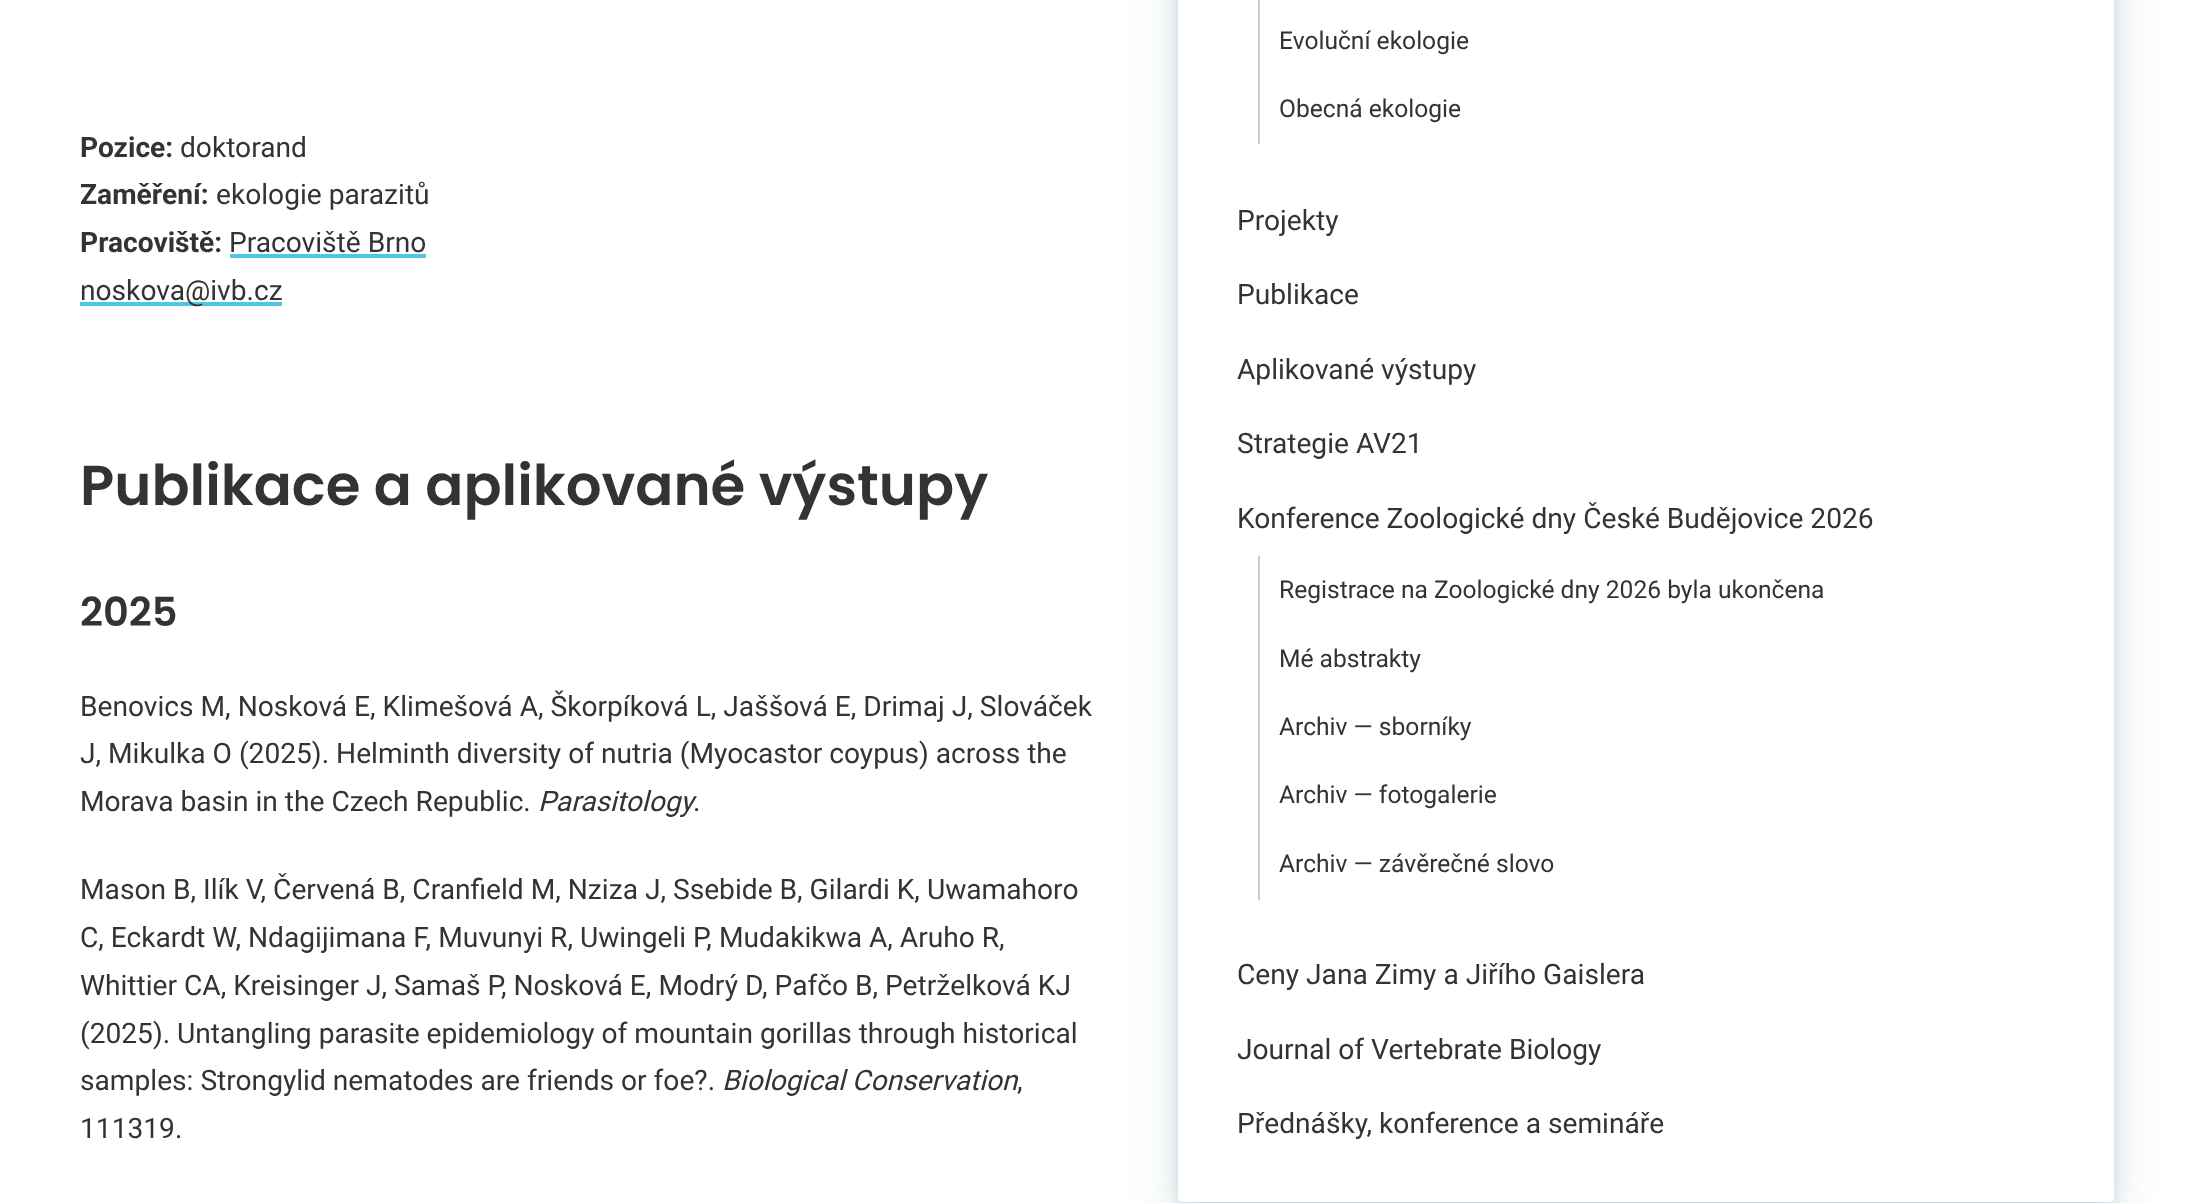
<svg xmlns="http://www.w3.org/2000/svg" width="2193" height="1203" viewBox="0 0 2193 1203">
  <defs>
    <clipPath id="clip1"><path d="M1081 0H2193V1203H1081ZM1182-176H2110C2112-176 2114-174 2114-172V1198C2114 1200 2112 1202 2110 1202H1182C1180 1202 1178 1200 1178 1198V-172C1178-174 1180-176 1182-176Z" clip-rule="evenodd"/></clipPath>
    <clipPath id="clip2"><path d="M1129 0H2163V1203H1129ZM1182-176H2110C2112-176 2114-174 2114-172V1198C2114 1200 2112 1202 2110 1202H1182C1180 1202 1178 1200 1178 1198V-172C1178-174 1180-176 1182-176Z" clip-rule="evenodd"/></clipPath>
    <clipPath id="clip3"><path d="M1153 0H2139V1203H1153ZM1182-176H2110C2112-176 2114-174 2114-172V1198C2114 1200 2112 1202 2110 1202H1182C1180 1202 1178 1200 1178 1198V-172C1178-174 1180-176 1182-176Z" clip-rule="evenodd"/></clipPath>
    <clipPath id="clip4"><path d="M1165 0H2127V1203H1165ZM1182-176H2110C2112-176 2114-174 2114-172V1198C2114 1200 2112 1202 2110 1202H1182C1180 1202 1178 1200 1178 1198V-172C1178-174 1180-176 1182-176Z" clip-rule="evenodd"/></clipPath>
  </defs>
  <rect width="100%" height="100%" fill="rgb(255,255,255)"/>
  <text x="80" y="157" font-family="Roboto" font-size="28.15" font-weight="bold" fill="rgb(51,51,51)">Pozice:</text>
  <text x="180" y="157" font-family="Roboto" font-size="28.15" fill="rgb(51,51,51)">doktorand</text>
  <text x="80" y="204" font-family="Roboto" font-size="28.15" font-weight="bold" fill="rgb(51,51,51)">Zaměření:</text>
  <text x="216" y="204" font-family="Roboto" font-size="28.15" fill="rgb(51,51,51)">ekologie parazitů</text>
  <text x="80" y="252" font-family="Roboto" font-size="28.15" font-weight="bold" fill="rgb(51,51,51)">Pracoviště:</text>
  <text x="229" y="252" font-family="Roboto" font-size="28.15" fill="rgb(51,51,51)">Pracoviště Brno</text>
  <rect x="230" y="254" width="196" height="4" fill="rgb(79,198,224)"/>
  <rect x="80" y="302" width="202" height="4" fill="rgb(79,198,224)"/>
  <text x="80" y="300" font-family="Roboto" font-size="28.15" fill="rgb(51,51,51)">noskova@ivb.cz</text>
  <text x="80" y="505" font-family="Poppins" font-size="56.25" font-weight="600" fill="rgb(51,51,51)">Publikace a aplikované výstupy</text>
  <text x="80" y="626" font-family="Poppins" font-size="40" font-weight="600" fill="rgb(51,51,51)">2025</text>
  <g font-family="Roboto" font-size="28.15" fill="rgb(51,51,51)">
    <text>
      <tspan x="80" y="716">Benovics M, Nosková E, Klimešová A, Škorpíková L, Jaššová E, Drimaj J, Slováček</tspan>
      <tspan x="80" y="763">J, Mikulka O (2025). Helminth diversity of nutria (Myocastor coypus) across the</tspan>
      <tspan x="80" y="811">Morava basin in the Czech Republic.</tspan>
    </text>
  </g>
  <text x="538" y="811" font-family="Roboto" font-size="28.15" font-style="italic" fill="rgb(51,51,51)">Parasitology</text>
  <g font-family="Roboto" font-size="28.15" fill="rgb(51,51,51)">
    <text x="693" y="811">.</text>
    <text>
      <tspan x="80" y="899">Mason B, Ilík V, Červená B, Cranfield M, Nziza J, Ssebide B, Gilardi K, Uwamahoro</tspan>
      <tspan x="80" y="947">C, Eckardt W, Ndagijimana F, Muvunyi R, Uwingeli P, Mudakikwa A, Aruho R,</tspan>
      <tspan x="80" y="995">Whittier CA, Kreisinger J, Samaš P, Nosková E, Modrý D, Pafčo B, Petrželková KJ</tspan>
      <tspan x="80" y="1043">(2025).</tspan>
    </text>
    <text x="177" y="1043">Untangling parasite epidemiology of mountain gorillas through historical</text>
    <text x="80" y="1090">samples: Strongylid nematodes are friends or foe?.</text>
  </g>
  <text x="722" y="1090" font-family="Roboto" font-size="28.15" font-style="italic" fill="rgb(51,51,51)">Biological Conservation</text>
  <g font-family="Roboto" font-size="28.15" fill="rgb(51,51,51)">
    <text x="1017" y="1090">,</text>
    <text x="80" y="1138">111319.</text>
  </g>
  <g clip-path="url(#clip1)">
    <rect x="1178" y="-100" width="936" height="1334" rx="4" fill="rgba(159,186,193,0.2)" filter="blur(32px)"/>
  </g>
  <g clip-path="url(#clip2)">
    <rect x="1178" y="-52" width="936" height="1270" rx="4" fill="rgba(159,186,193,0.2)" filter="blur(16px)"/>
  </g>
  <g clip-path="url(#clip3)">
    <rect x="1178" y="-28" width="936" height="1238" rx="4" fill="rgba(159,186,193,0.2)" filter="blur(8px)"/>
  </g>
  <g clip-path="url(#clip4)">
    <rect x="1178" y="-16" width="936" height="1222" rx="4" fill="rgba(159,186,193,0.2)" filter="blur(4px)"/>
  </g>
  <rect x="1258" y="0" width="2" height="144" fill="rgb(204,204,204)"/>
  <g font-family="Roboto" font-size="24.6" fill="rgb(51,51,51)">
    <text x="1279" y="49">Evoluční ekologie</text>
    <text x="1279" y="117">Obecná ekologie</text>
  </g>
  <g font-family="Roboto" font-size="28.15" fill="rgb(51,51,51)">
    <text x="1237" y="230">Projekty</text>
    <text x="1237" y="304">Publikace</text>
    <text x="1237" y="379">Aplikované výstupy</text>
    <text x="1237" y="453">Strategie AV21</text>
    <text x="1237" y="528">Konference Zoologické dny České Budějovice 2026</text>
  </g>
  <rect x="1258" y="556" width="2" height="344" fill="rgb(204,204,204)"/>
  <g font-family="Roboto" font-size="24.6" fill="rgb(51,51,51)">
    <text x="1279" y="598">Registrace na Zoologické dny 2026 byla ukončena</text>
    <text x="1279" y="667">Mé abstrakty</text>
    <text x="1279" y="735">Archiv — sborníky</text>
    <text x="1279" y="803">Archiv — fotogalerie</text>
    <text x="1279" y="872">Archiv — závěrečné slovo</text>
  </g>
  <g font-family="Roboto" font-size="28.15" fill="rgb(51,51,51)">
    <text x="1237" y="984">Ceny Jana Zimy a Jiřího Gaislera</text>
    <text x="1237" y="1059">Journal of Vertebrate Biology</text>
    <text x="1237" y="1133">Přednášky, konference a semináře</text>
  </g>
</svg>
